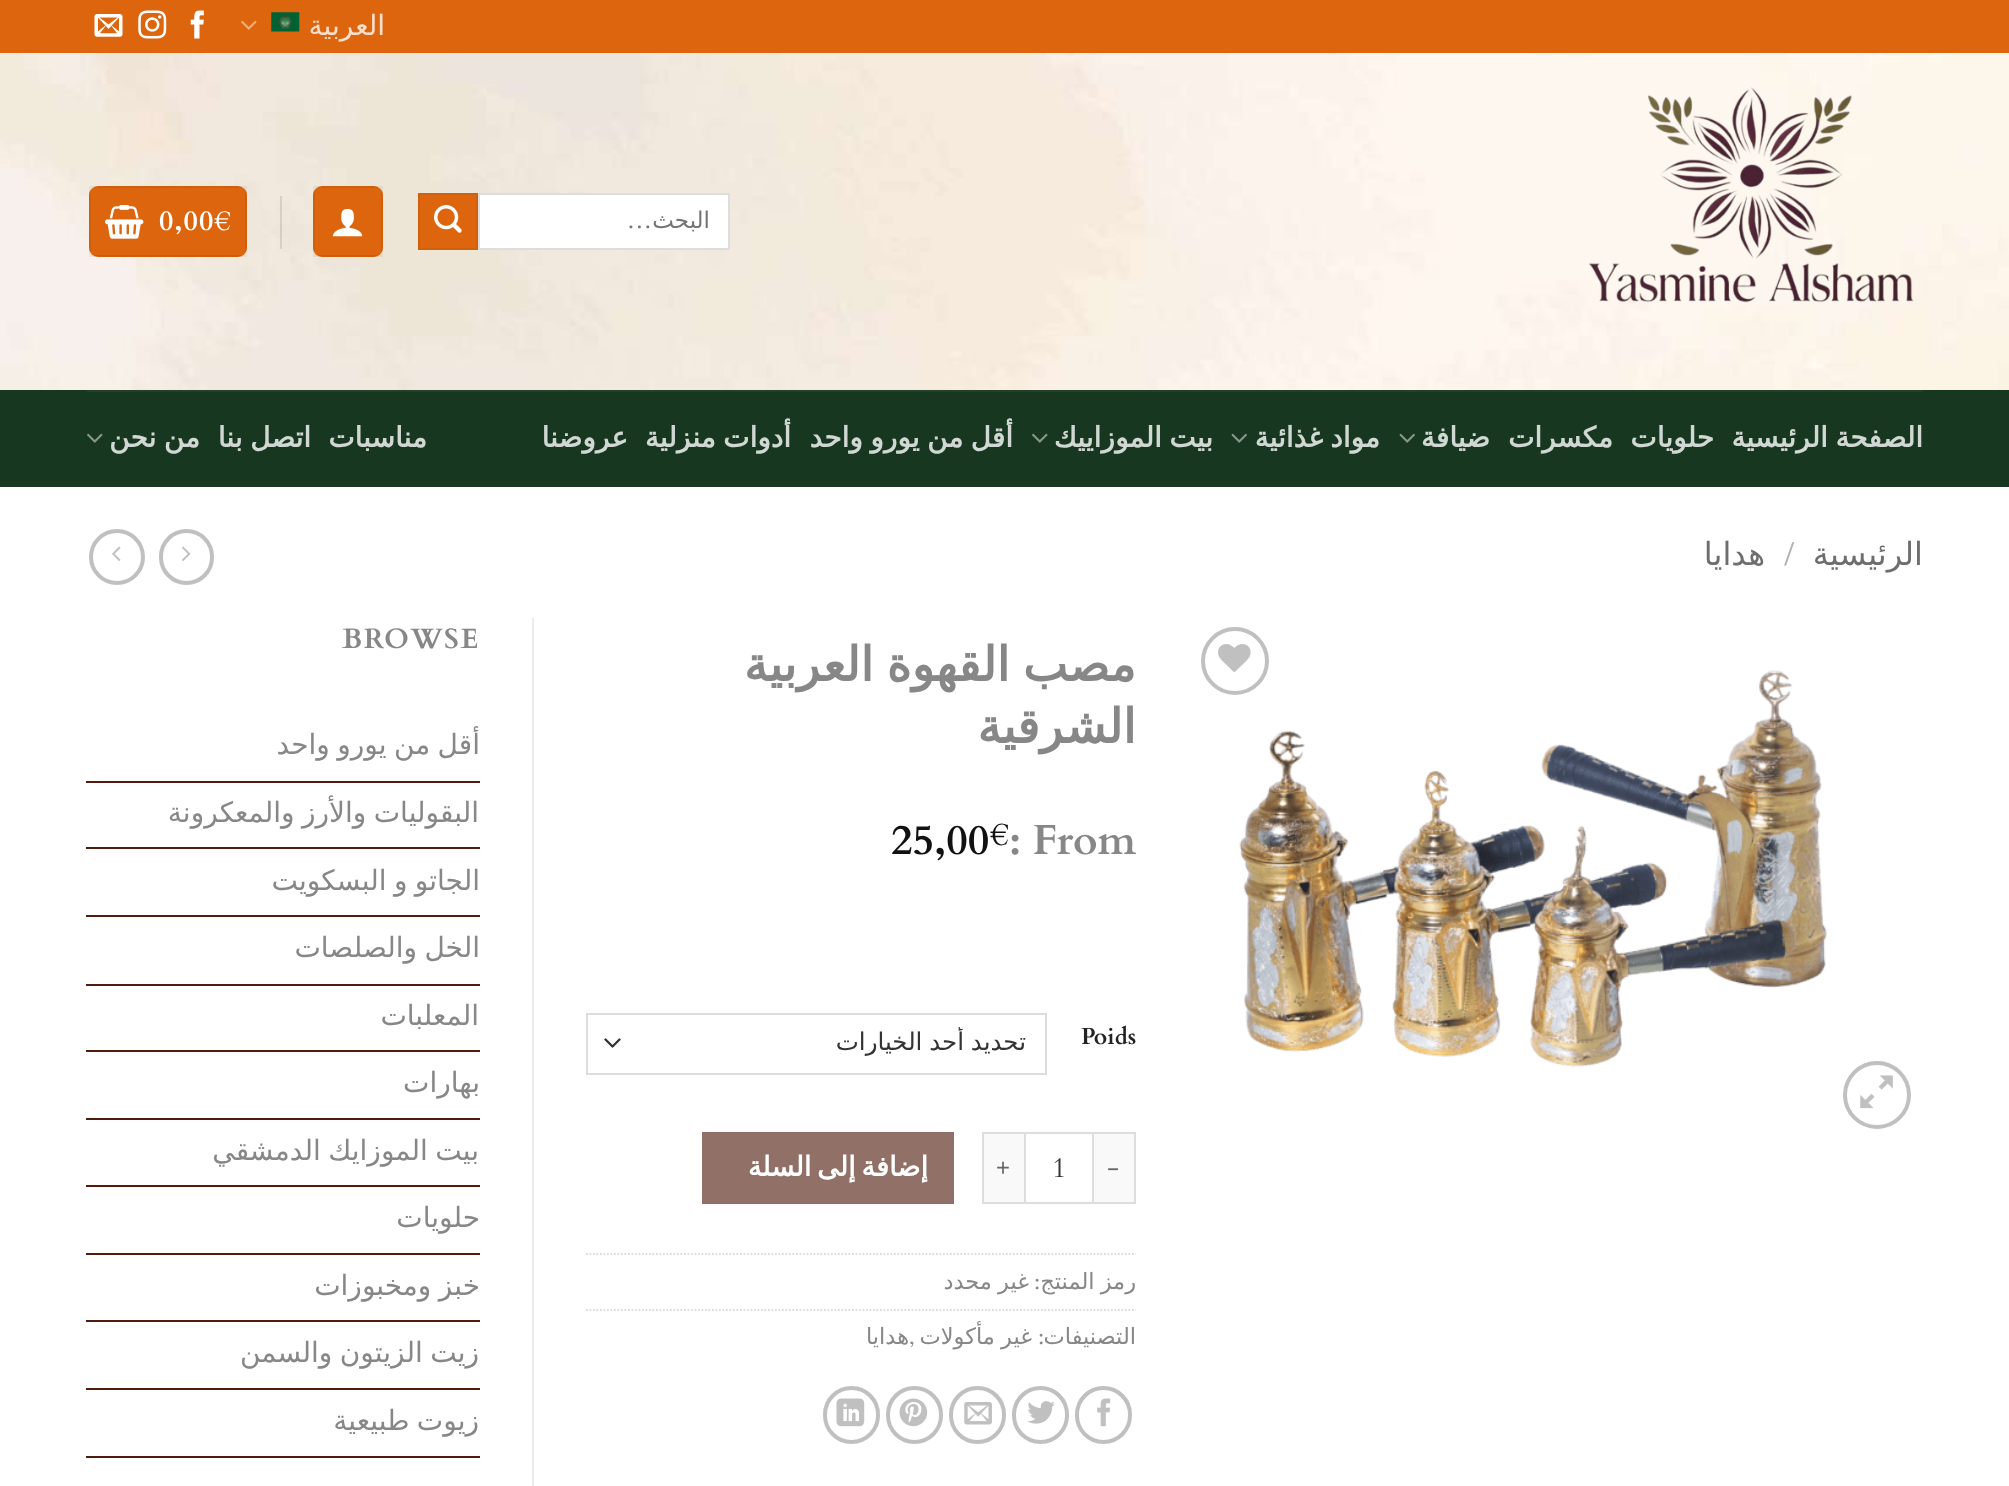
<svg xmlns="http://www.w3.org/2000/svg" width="2009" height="1486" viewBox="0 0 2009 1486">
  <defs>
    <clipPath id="clip1"><rect x="623" y="1027" width="403" height="32"/></clipPath>
  </defs>
  <rect width="100%" height="100%" fill="rgb(255,255,255)"/>
  <rect x="0" y="0" width="2009" height="53" fill="rgb(220,101,13)"/>
  <text x="385" y="35" font-family="DejaVu Sans" font-size="28" direction="rtl" fill="rgb(248,224,207)">العربية</text>
  <image x="271" y="12" width="29" height="20" href="pic1.png"/>
  <image x="241" y="20" width="16" height="10" href="pic2.png"/>
  <image x="190" y="10" width="14" height="29" href="pic3.png"/>
  <image x="138" y="10" width="29" height="29" href="pic4.png"/>
  <image x="94" y="14" width="29" height="23" href="pic5.png"/>
  <image x="0" y="53" width="2009" height="337" href="pic6.png"/>
  <image x="1589" y="87" width="325" height="216" href="pic7.png"/>
  <rect x="479" y="194" width="250" height="55" fill="rgb(255,255,255)" stroke="rgb(221,221,221)" stroke-width="2"/>
  <text x="710" y="228" font-family="DejaVu Sans" font-size="23" direction="rtl" fill="rgb(117,117,117)">البحث</text>
  <text x="652" y="228" font-family="Cardo" font-size="23" direction="rtl" fill="rgb(117,117,117)">…</text>
  <rect x="419" y="194" width="58" height="55" fill="rgb(220,101,13)" stroke="rgb(209,96,12)" stroke-width="2"/>
  <image x="434" y="205" width="28" height="28" href="pic8.png"/>
  <rect x="313" y="186" width="70" height="71" rx="9" fill="rgb(220,101,13)"/>
  <rect x="314" y="187" width="68" height="69" fill="none" stroke="rgba(0,0,0,0.05)" stroke-width="2"/>
  <image x="332" y="208" width="31" height="29" href="pic9.png"/>
  <rect x="280" y="196" width="2" height="53" fill="rgba(0,0,0,0.1)"/>
  <rect x="89" y="186" width="158" height="71" rx="9" fill="rgb(220,101,13)"/>
  <rect x="90" y="187" width="156" height="69" fill="none" stroke="rgba(0,0,0,0.05)" stroke-width="2"/>
  <text x="159" y="230" font-family="Cardo" font-size="28" font-weight="bold" letter-spacing="1" fill="rgb(255,255,255)">0,00€</text>
  <image x="105" y="205" width="39" height="34" href="pic10.png"/>
  <rect x="0" y="390" width="2009" height="97" fill="rgb(23,55,32)"/>
  <rect x="86" y="390" width="1837" height="2" fill="rgb(34,63,42)"/>
  <g font-family="DejaVu Sans" font-size="28" font-weight="bold" direction="rtl" fill="rgb(209,215,210)">
    <text x="1923" y="447" word-spacing="-1.5">الصفحة الرئيسية</text>
    <text x="1714" y="447">حلويات</text>
    <text x="1613" y="447">مكسرات</text>
    <text x="1490" y="447">ضيافة</text>
  </g>
  <image x="1399" y="433" width="16" height="10" href="pic11.png"/>
  <text x="1380" y="447" word-spacing="-1.5" font-family="DejaVu Sans" font-size="28" font-weight="bold" direction="rtl" fill="rgb(209,215,210)">مواد غذائية</text>
  <image x="1231" y="433" width="16" height="10" href="pic11.png"/>
  <text x="1213" y="447" word-spacing="-1.5" font-family="DejaVu Sans" font-size="28" font-weight="bold" direction="rtl" fill="rgb(209,215,210)">بيت الموزاييك</text>
  <image x="1032" y="433" width="16" height="10" href="pic12.png"/>
  <g font-family="DejaVu Sans" font-size="28" font-weight="bold" direction="rtl" fill="rgb(209,215,210)">
    <text x="1013" y="447" word-spacing="-1.5">أقل من يورو واحد</text>
    <text x="791" y="447" word-spacing="-1.5">أدوات منزلية</text>
    <text x="628" y="447">عروضنا</text>
    <text x="427" y="447">مناسبات</text>
    <text x="311" y="447" word-spacing="-1.5">اتصل بنا</text>
    <text x="200" y="447" word-spacing="-1.5">من نحن</text>
  </g>
  <image x="87" y="433" width="16" height="10" href="pic12.png"/>
  <text x="1923" y="565" font-family="DejaVu Sans" font-size="32" direction="rtl" fill="rgb(110,110,110)">الرئيسية</text>
  <text x="1784" y="565" font-family="Cardo" font-size="32" fill="rgb(178,178,178)">/</text>
  <text x="1765" y="565" font-family="DejaVu Sans" font-size="32" direction="rtl" fill="rgb(110,110,110)">هدايا</text>
  <rect x="161" y="531" width="51" height="52" rx="25.5" fill="none" stroke="rgb(192,192,192)" stroke-width="4"/>
  <image x="182" y="546" width="9" height="15" href="pic13.png"/>
  <circle cx="117" cy="557" r="26" fill="none" stroke="rgb(192,192,192)" stroke-width="4"/>
  <image x="112" y="546" width="9" height="15" href="pic14.png"/>
  <image x="1239" y="670" width="588" height="397" href="pic16.png"/>
  <circle cx="1235" cy="661" r="32" fill="none" stroke="rgb(192,192,192)" stroke-width="4"/>
  <image x="1218" y="644" width="33" height="28" href="pic15.png"/>
  <circle cx="1877" cy="1095" r="32" fill="none" stroke="rgb(192,192,192)" stroke-width="4"/>
  <image x="1860" y="1075" width="33" height="34" href="pic17.png"/>
  <rect x="532" y="618" width="2" height="868" fill="rgb(236,236,236)"/>
  <g font-family="DejaVu Sans" font-size="47.5" font-weight="bold" direction="rtl" fill="rgb(135,135,135)">
    <text>
      <tspan x="1136" y="681" word-spacing="-2">مصب القهوة العربية</tspan>
      <tspan x="1136" y="743">الشرقية</tspan>
    </text>
  </g>
  <text x="1009" y="854" font-family="Cardo" font-size="42" font-weight="bold" fill="rgb(135,135,135)">: From</text>
  <text x="990" y="845" font-family="Cardo" font-size="32" font-weight="bold" fill="rgb(17,17,17)">€</text>
  <text x="891" y="854" font-family="Cardo" font-size="42" font-weight="bold" fill="rgb(17,17,17)">25,00</text>
  <text x="1081" y="1044" font-family="Cardo" font-size="23" font-weight="bold" fill="rgb(34,34,34)">Poids</text>
  <path d="M605.5 1039.5L612.5 1046.5L619.5 1039.5" fill="none" stroke="rgb(51,51,51)" stroke-width="2.3" stroke-linecap="round" stroke-linejoin="round"/>
  <rect x="587" y="1014" width="459" height="60" fill="none" stroke="rgb(221,221,221)" stroke-width="2"/>
  <g clip-path="url(#clip1)">
    <text x="1026" y="1050" word-spacing="-1" font-family="DejaVu Sans" font-size="24.5" direction="rtl" fill="rgb(51,51,51)">تحديد أحد الخيارات</text>
  </g>
  <rect x="1094" y="1134" width="40" height="68" fill="rgb(249,249,249)"/>
  <rect x="1094" y="1132" width="42" height="2" fill="rgb(221,221,221)"/>
  <rect x="1134" y="1132" width="2" height="72" fill="rgb(221,221,221)"/>
  <rect x="1094" y="1202" width="42" height="2" fill="rgb(221,221,221)"/>
  <text x="1107" y="1176" font-family="Cardo" font-size="27.25" letter-spacing="0.75" fill="rgb(102,102,102)">-</text>
  <rect x="1025" y="1133" width="68" height="70" fill="none" stroke="rgb(221,221,221)" stroke-width="2"/>
  <text x="1052" y="1177" font-family="Cardo" font-size="28" fill="rgb(51,51,51)">1</text>
  <rect x="984" y="1134" width="40" height="68" fill="rgb(249,249,249)"/>
  <rect x="982" y="1132" width="42" height="2" fill="rgb(221,221,221)"/>
  <rect x="982" y="1202" width="42" height="2" fill="rgb(221,221,221)"/>
  <rect x="982" y="1132" width="2" height="72" fill="rgb(221,221,221)"/>
  <text x="996" y="1176" font-family="Cardo" font-size="27.25" letter-spacing="0.75" fill="rgb(102,102,102)">+</text>
  <rect x="703" y="1133" width="250" height="70" fill="rgb(145,112,103)" stroke="rgb(143,112,103)" stroke-width="2"/>
  <text x="928" y="1176" word-spacing="-3" font-family="DejaVu Sans" font-size="27.25" font-weight="bold" letter-spacing="0.75" direction="rtl" fill="rgb(255,255,255)">إضافة إلى السلة</text>
  <path d="M586 1254H1136" fill="none" stroke="rgb(221,221,221)" stroke-width="1.8" stroke-dasharray="1.75 1.75"/>
  <text x="1136" y="1289" word-spacing="-1" font-family="DejaVu Sans" font-size="22.5" direction="rtl" fill="rgb(135,135,135)">رمز المنتج</text>
  <text x="1040" y="1289" font-family="Cardo" font-size="22.5" direction="rtl" fill="rgb(135,135,135)">:</text>
  <text x="1029" y="1289" word-spacing="-1" font-family="DejaVu Sans" font-size="22.5" direction="rtl" fill="rgb(135,135,135)">غير محدد</text>
  <path d="M586 1310H1136" fill="none" stroke="rgb(221,221,221)" stroke-width="1.8" stroke-dasharray="1.75 1.75"/>
  <text x="1136" y="1344" font-family="DejaVu Sans" font-size="22.5" direction="rtl" fill="rgb(135,135,135)">التصنيفات</text>
  <text x="1044" y="1344" font-family="Cardo" font-size="22.5" direction="rtl" fill="rgb(135,135,135)">:</text>
  <text x="1032" y="1344" word-spacing="-1" font-family="DejaVu Sans" font-size="22.5" direction="rtl" fill="rgb(135,135,135)">غير مأكولات</text>
  <text x="909" y="1344" font-family="Cardo" font-size="22.5" fill="rgb(135,135,135)">,</text>
  <text x="909" y="1344" font-family="DejaVu Sans" font-size="22.5" direction="rtl" fill="rgb(135,135,135)">هدايا</text>
  <rect x="1077" y="1388" width="53" height="54" rx="26.5" fill="none" stroke="rgb(192,192,192)" stroke-width="4"/>
  <image x="1097" y="1398" width="14" height="29" href="pic18.png"/>
  <rect x="1014" y="1388" width="53" height="54" rx="26.5" fill="none" stroke="rgb(192,192,192)" stroke-width="4"/>
  <image x="1027" y="1401" width="28" height="23" href="pic19.png"/>
  <rect x="951" y="1388" width="53" height="54" rx="26.5" fill="none" stroke="rgb(192,192,192)" stroke-width="4"/>
  <image x="964" y="1402" width="28" height="23" href="pic20.png"/>
  <rect x="888" y="1388" width="53" height="54" rx="26.5" fill="none" stroke="rgb(192,192,192)" stroke-width="4"/>
  <image x="899" y="1398" width="29" height="29" href="pic21.png"/>
  <rect x="825" y="1388" width="53" height="54" rx="26.5" fill="none" stroke="rgb(192,192,192)" stroke-width="4"/>
  <image x="836" y="1398" width="29" height="29" href="pic22.png"/>
  <text x="342" y="648" font-family="Cardo" font-size="28" font-weight="bold" letter-spacing="1.5" fill="rgb(135,135,135)">BROWSE</text>
  <text x="480" y="754" word-spacing="-1.5" font-family="DejaVu Sans" font-size="28" direction="rtl" fill="rgb(135,135,135)">أقل من يورو واحد</text>
  <rect x="86" y="781" width="394" height="2" fill="rgb(80,28,14)"/>
  <text x="479" y="822" word-spacing="-1.5" font-family="DejaVu Sans" font-size="28" direction="rtl" fill="rgb(135,135,135)">البقوليات والأرز والمعكرونة</text>
  <rect x="86" y="847" width="394" height="2" fill="rgb(80,28,14)"/>
  <text x="480" y="890" word-spacing="-1.5" font-family="DejaVu Sans" font-size="28" direction="rtl" fill="rgb(135,135,135)">الجاتو و البسكويت</text>
  <rect x="86" y="915" width="394" height="2" fill="rgb(80,28,14)"/>
  <text x="480" y="957" word-spacing="-1.5" font-family="DejaVu Sans" font-size="28" direction="rtl" fill="rgb(135,135,135)">الخل والصلصات</text>
  <rect x="86" y="984" width="394" height="2" fill="rgb(80,28,14)"/>
  <text x="479" y="1025" font-family="DejaVu Sans" font-size="28" direction="rtl" fill="rgb(135,135,135)">المعلبات</text>
  <rect x="86" y="1050" width="394" height="2" fill="rgb(80,28,14)"/>
  <text x="480" y="1092" font-family="DejaVu Sans" font-size="28" direction="rtl" fill="rgb(135,135,135)">بهارات</text>
  <rect x="86" y="1118" width="394" height="2" fill="rgb(80,28,14)"/>
  <text x="479" y="1160" word-spacing="-1.5" font-family="DejaVu Sans" font-size="28" direction="rtl" fill="rgb(135,135,135)">بيت الموزايك الدمشقي</text>
  <rect x="86" y="1185" width="394" height="2" fill="rgb(80,28,14)"/>
  <text x="480" y="1227" font-family="DejaVu Sans" font-size="28" direction="rtl" fill="rgb(135,135,135)">حلويات</text>
  <rect x="86" y="1253" width="394" height="2" fill="rgb(80,28,14)"/>
  <text x="480" y="1295" word-spacing="-1.5" font-family="DejaVu Sans" font-size="28" direction="rtl" fill="rgb(135,135,135)">خبز ومخبوزات</text>
  <rect x="86" y="1320" width="394" height="2" fill="rgb(80,28,14)"/>
  <text x="479" y="1362" word-spacing="-1.5" font-family="DejaVu Sans" font-size="28" direction="rtl" fill="rgb(135,135,135)">زيت الزيتون والسمن</text>
  <rect x="86" y="1388" width="394" height="2" fill="rgb(80,28,14)"/>
  <text x="479" y="1430" word-spacing="-1.5" font-family="DejaVu Sans" font-size="28" direction="rtl" fill="rgb(135,135,135)">زيوت طبيعية</text>
  <rect x="86" y="1456" width="394" height="2" fill="rgb(80,28,14)"/>
</svg>
